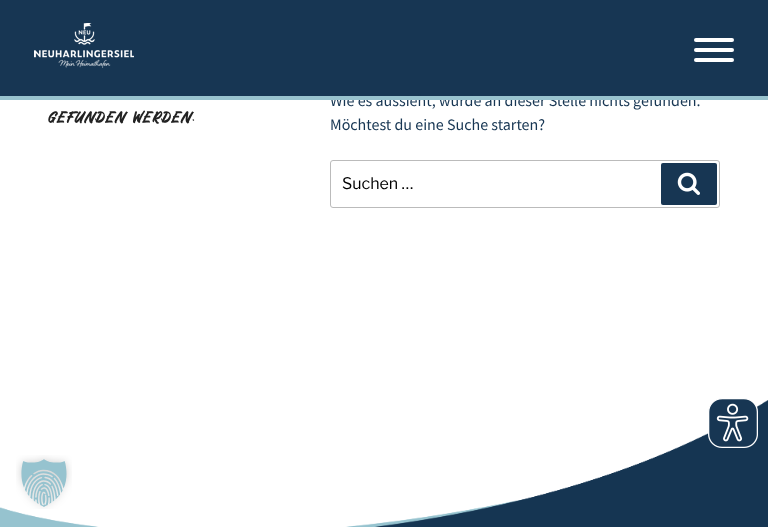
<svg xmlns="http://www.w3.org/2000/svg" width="768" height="527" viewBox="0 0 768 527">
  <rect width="100%" height="100%" fill="rgb(255,255,255)"/>
  <rect x="0" y="0" width="768" height="96" fill="rgb(23,54,83)"/>
  <text x="330" y="106" font-family="Source Sans Pro" font-size="16" fill="rgb(23,54,83)">Wie es aussieht, wurde an dieser Stelle nichts gefunden.</text>
  <rect x="0" y="96" width="768" height="4" fill="rgb(152,195,206)"/>
  <image x="34" y="23" width="100" height="45" href="pic1.png"/>
  <rect x="694" y="38" width="40" height="4" rx="2" fill="rgb(255,255,255)"/>
  <rect x="694" y="48" width="40" height="4" rx="2" fill="rgb(255,255,255)"/>
  <rect x="694" y="58" width="40" height="4" rx="2" fill="rgb(255,255,255)"/>
  <text x="48" y="121" font-family="'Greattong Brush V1'" font-size="14" font-weight="bold" letter-spacing="2" fill="rgb(34,34,34)">GEFUNDEN WERDEN.</text>
  <text x="330" y="130" font-family="Source Sans Pro" font-size="16" fill="rgb(23,54,83)">Möchtest du eine Suche starten?</text>
  <rect x="330.5" y="160.5" width="389" height="47" rx="2.5" fill="none" stroke="rgb(187,187,187)"/>
  <text x="342" y="189" font-family="Libre Franklin" font-size="16" fill="rgb(0,0,0)">Suchen …</text>
  <rect x="661" y="163" width="56" height="42" rx="2" fill="rgb(23,54,83)"/>
  <image x="677" y="172" width="23" height="23" href="pic2.png"/>
  <image x="0" y="400" width="768" height="127" href="pic3.png"/>
  <image x="708" y="398" width="50" height="50" href="pic4.png"/>
  <image x="16" y="455" width="56" height="54" href="pic5.png"/>
</svg>
